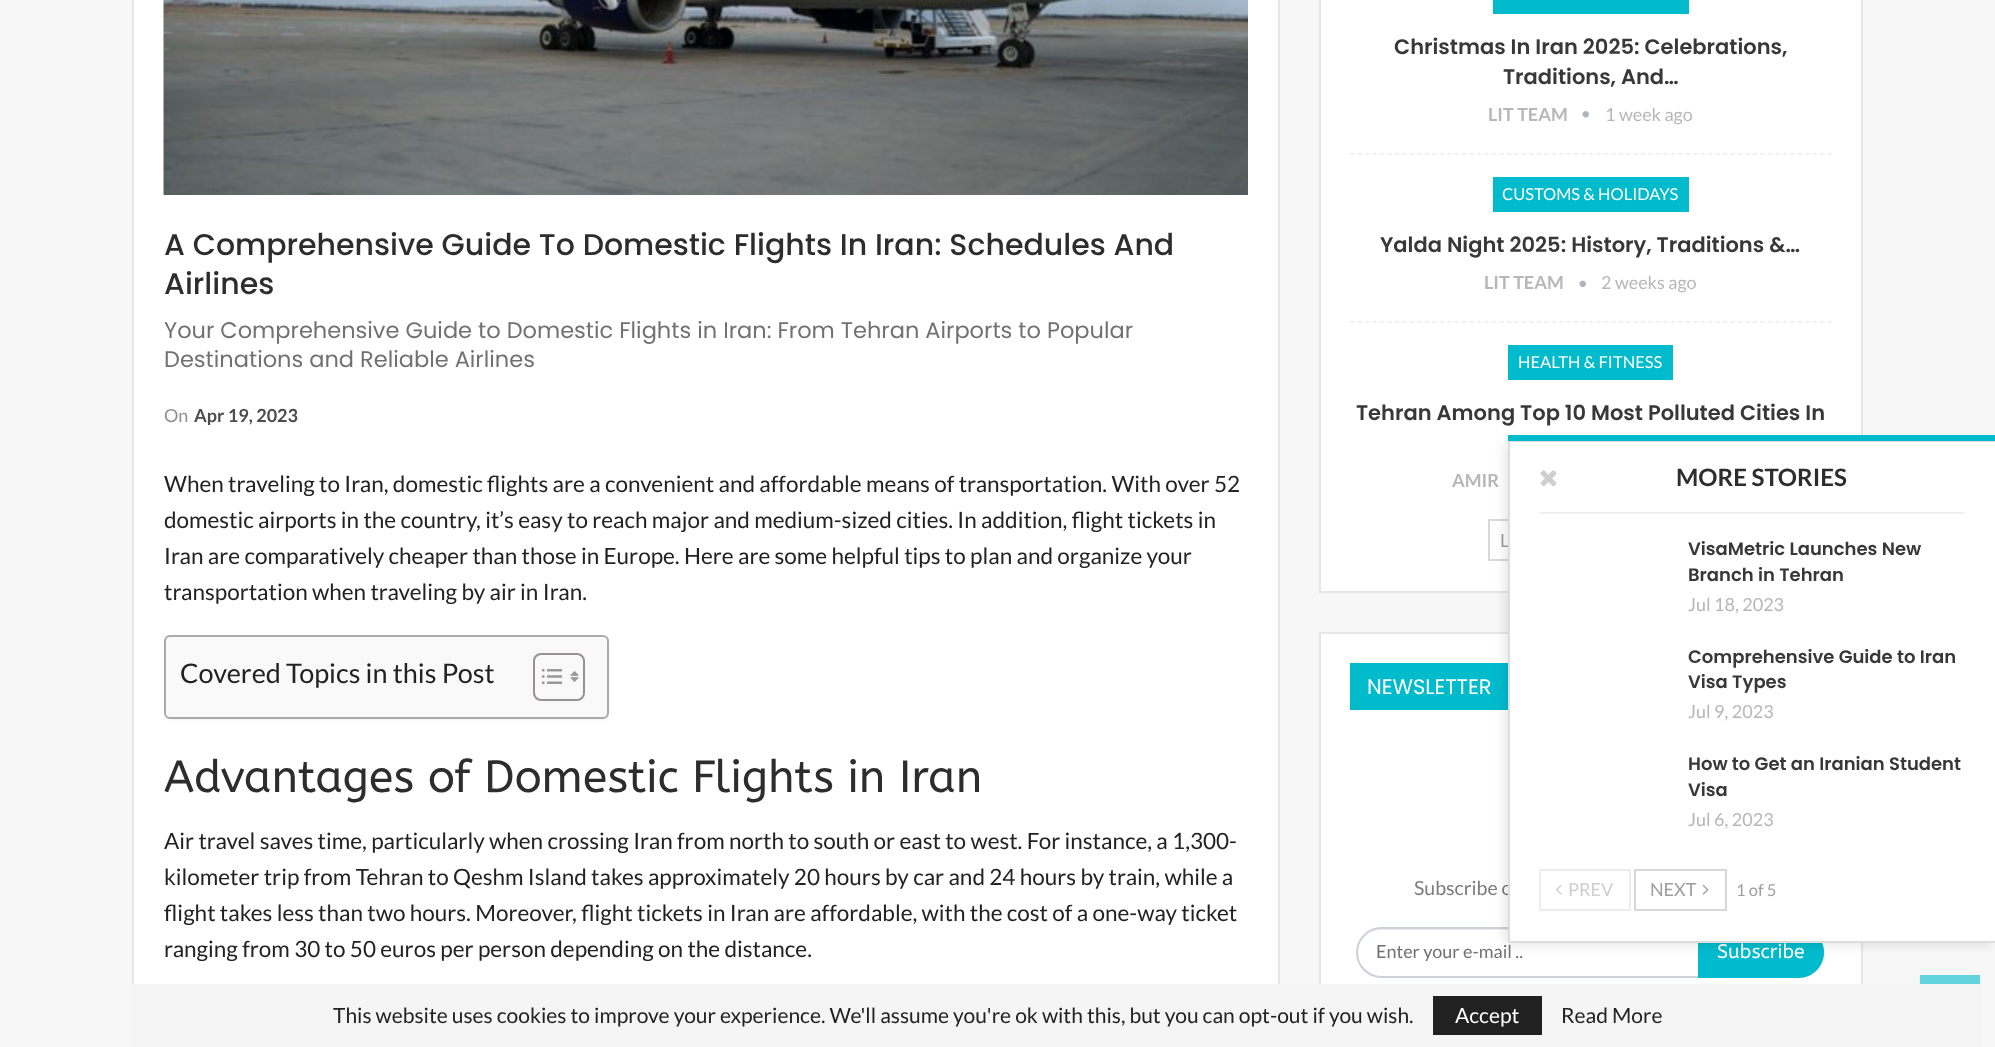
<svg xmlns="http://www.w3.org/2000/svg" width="1995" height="1047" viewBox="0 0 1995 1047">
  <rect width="100%" height="100%" fill="rgb(247,247,247)"/>
  <rect x="134" y="0" width="1144" height="984" fill="rgb(255,255,255)"/>
  <rect x="133" y="-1" width="1146" height="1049" fill="none" stroke="rgb(230,230,230)" stroke-width="2"/>
  <image x="163" y="0" width="1085" height="195" href="pic1.png"/>
  <g font-family="Poppins" font-size="30" font-weight="500" fill="rgb(45,45,45)">
    <text>
      <tspan x="164" y="255">A Comprehensive Guide To Domestic Flights In Iran: Schedules And</tspan>
      <tspan x="164" y="294">Airlines</tspan>
    </text>
  </g>
  <g font-family="Poppins" font-size="22.5" fill="rgb(113,113,113)">
    <text>
      <tspan x="164" y="338">Your Comprehensive Guide to Domestic Flights in Iran: From Tehran Airports to Popular</tspan>
      <tspan x="164" y="367">Destinations and Reliable Airlines</tspan>
    </text>
  </g>
  <text x="164" y="422" font-family="Lato" font-size="18" fill="rgb(143,143,143)">On</text>
  <text x="194" y="422" font-family="Lato" font-size="18" font-weight="bold" fill="rgb(77,77,77)">Apr 19, 2023</text>
  <g font-family="Lato" font-size="22.5" fill="rgb(34,34,34)">
    <text>
      <tspan x="164" y="492">When traveling to Iran, domestic flights are a convenient and affordable means of transportation. With over 52</tspan>
      <tspan x="164" y="528">domestic airports in the country, it’s easy to reach major and medium-sized cities. In addition, flight tickets in</tspan>
      <tspan x="164" y="564">Iran are comparatively cheaper than those in Europe. Here are some helpful tips to plan and organize your</tspan>
      <tspan x="164" y="600">transportation when traveling by air in Iran.</tspan>
    </text>
  </g>
  <rect x="164" y="636" width="445" height="84" rx="6" fill="rgba(0,0,0,0.05)" filter="blur(1px)"/>
  <rect x="165" y="636" width="443" height="82" rx="5" fill="rgb(249,249,249)" stroke="rgb(170,170,170)" stroke-width="2"/>
  <text x="180" y="683" font-family="Lato" font-size="27" fill="rgb(34,34,34)">Covered Topics in this Post</text>
  <rect x="534" y="654" width="50" height="46" rx="7" fill="none" stroke="rgb(153,145,145)" stroke-width="2"/>
  <image x="542" y="669" width="20" height="15" href="pic2.png"/>
  <image x="570" y="671" width="9" height="11" href="pic3.png"/>
  <text x="164" y="792" font-family="ABeeZee" font-size="45" fill="rgb(45,45,45)">Advantages of Domestic Flights in Iran</text>
  <g font-family="Lato" font-size="22.5" fill="rgb(34,34,34)">
    <text>
      <tspan x="164" y="849">Air travel saves time, particularly when crossing Iran from north to south or east to west. For instance, a 1,300-</tspan>
      <tspan x="164" y="885">kilometer trip from Tehran to Qeshm Island takes approximately 20 hours by car and 24 hours by train, while a</tspan>
      <tspan x="164" y="921">flight takes less than two hours. Moreover, flight tickets in Iran are affordable, with the cost of a one-way ticket</tspan>
      <tspan x="164" y="957">ranging from 30 to 50 euros per person depending on the distance.</tspan>
    </text>
  </g>
  <rect x="1320" y="-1" width="542" height="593" fill="rgb(255,255,255)" stroke="rgb(230,230,230)" stroke-width="2"/>
  <path d="M1350 154H1831.5" fill="none" stroke="rgb(235,235,235)" stroke-width="1.5" stroke-dasharray="4.5 2.96"/>
  <rect x="1493" y="0" width="196" height="14" fill="rgb(0,187,204)"/>
  <g font-family="Poppins" font-size="21" font-weight="600" fill="rgb(56,56,56)">
    <text x="1394" y="54">Christmas In Iran 2025: Celebrations,</text>
    <text x="1503" y="84">Traditions, And…</text>
  </g>
  <text x="1488" y="121" font-family="Lato" font-size="18" font-weight="bold" fill="rgb(183,183,183)">LIT TEAM</text>
  <image x="1582" y="111" width="7" height="7" href="pic4.png"/>
  <text x="1605" y="121" font-family="Lato" font-size="18" fill="rgb(183,183,183)">1 week ago</text>
  <path d="M1350 322H1831.5" fill="none" stroke="rgb(235,235,235)" stroke-width="1.5" stroke-dasharray="4.5 2.96"/>
  <rect x="1493" y="177" width="196" height="35" fill="rgb(0,187,204)"/>
  <text x="1502" y="200" font-family="Lato" font-size="16.5" fill="rgb(255,255,255)">CUSTOMS &amp; HOLIDAYS</text>
  <text x="1380" y="252" font-family="Poppins" font-size="21" font-weight="600" fill="rgb(56,56,56)">Yalda Night 2025: History, Traditions &amp;…</text>
  <text x="1484" y="289" font-family="Lato" font-size="18" font-weight="bold" fill="rgb(183,183,183)">LIT TEAM</text>
  <image x="1579" y="280" width="7" height="7" href="pic5.png"/>
  <text x="1601" y="289" font-family="Lato" font-size="18" fill="rgb(183,183,183)">2 weeks ago</text>
  <rect x="1508" y="345" width="165" height="35" fill="rgb(0,187,204)"/>
  <text x="1518" y="368" font-family="Lato" font-size="16.5" fill="rgb(255,255,255)">HEALTH &amp; FITNESS</text>
  <text x="1356" y="420" font-family="Poppins" font-size="21" font-weight="600" fill="rgb(56,56,56)">Tehran Among Top 10 Most Polluted Cities In</text>
  <text x="1452" y="487" font-family="Lato" font-size="18" font-weight="bold" fill="rgb(183,183,183)">AMIR</text>
  <rect x="1489" y="520" width="204" height="40" fill="none" stroke="rgb(216,216,216)" stroke-width="2"/>
  <text x="1500" y="547" font-family="Lato" font-size="18" fill="rgb(158,158,158)">L</text>
  <rect x="1321" y="634" width="540" height="350" fill="rgb(255,255,255)"/>
  <rect x="1320" y="633" width="542" height="413" fill="none" stroke="rgb(230,230,230)" stroke-width="2"/>
  <rect x="1350" y="663" width="158" height="47" fill="rgb(0,187,204)"/>
  <text x="1367" y="694" font-family="Poppins" font-size="21" fill="rgb(255,255,255)">NEWSLETTER</text>
  <text x="1414" y="895" font-family="Lato" font-size="19.5" fill="rgb(123,123,123)">Subscribe o</text>
  <path d="M1382 930H1798C1812 930 1822 941 1822 954C1822 960 1820 965 1817 969C1821 965 1823 959 1823 953C1823 940 1812 929 1799 929H1382C1369 929 1358 940 1358 953C1358 941 1368 930 1382 930Z" fill="rgb(236,236,236)"/>
  <rect x="1357" y="928" width="466" height="49" rx="24.5" fill="none" stroke="rgb(203,209,216)" stroke-width="2"/>
  <text x="1376" y="958" font-family="Lato" font-size="18" fill="rgb(113,113,113)">Enter your e-mail ..</text>
  <path d="M1698 927H1798.5C1812.5 927 1824 938.5 1824 952.5C1824 966.5 1812.5 978 1798.5 978H1698Z" fill="rgb(0,187,204)"/>
  <text x="1717" y="958" font-family="ABeeZee" font-size="19.5" fill="rgb(255,255,255)">Subscribe</text>
  <rect x="1505" y="443" width="487" height="502" fill="rgba(0,0,0,0.1)" filter="blur(6px)"/>
  <rect x="1510" y="442" width="485" height="499" fill="rgb(255,255,255)"/>
  <rect x="1508" y="441" width="487" height="1" fill="rgb(221,221,221)"/>
  <rect x="1508" y="941" width="487" height="2" fill="rgb(221,221,221)"/>
  <rect x="1508" y="440" width="2" height="502" fill="rgb(221,221,221)"/>
  <rect x="1508" y="435" width="487" height="6" fill="rgb(0,187,204)"/>
  <rect x="1539" y="512" width="426" height="2" fill="rgb(240,240,240)"/>
  <image x="1540" y="470" width="17" height="17" href="pic6.png"/>
  <text x="1676" y="486" font-family="Lato" font-size="24" font-weight="bold" fill="rgb(45,45,45)">MORE STORIES</text>
  <g font-family="Poppins" font-size="18" font-weight="600" fill="rgb(56,56,56)">
    <text>
      <tspan x="1688" y="555">VisaMetric Launches New</tspan>
      <tspan x="1688" y="581">Branch in Tehran</tspan>
    </text>
  </g>
  <text x="1688" y="611" font-family="Lato" font-size="18" fill="rgb(183,183,183)">Jul 18, 2023</text>
  <g font-family="Poppins" font-size="18" font-weight="600" fill="rgb(56,56,56)">
    <text>
      <tspan x="1688" y="663">Comprehensive Guide to Iran</tspan>
      <tspan x="1688" y="688">Visa Types</tspan>
    </text>
  </g>
  <text x="1688" y="718" font-family="Lato" font-size="18" fill="rgb(183,183,183)">Jul 9, 2023</text>
  <g font-family="Poppins" font-size="18" font-weight="600" fill="rgb(56,56,56)">
    <text>
      <tspan x="1688" y="770">How to Get an Iranian Student</tspan>
      <tspan x="1688" y="796">Visa</tspan>
    </text>
  </g>
  <text x="1688" y="826" font-family="Lato" font-size="18" fill="rgb(183,183,183)">Jul 6, 2023</text>
  <rect x="1540" y="870" width="90" height="40" fill="none" stroke="rgb(236,236,236)" stroke-width="2"/>
  <image x="1556" y="884" width="6" height="11" href="pic7.png"/>
  <text x="1568" y="896" font-family="Lato" font-size="18" fill="rgb(207,207,207)">PREV</text>
  <rect x="1635" y="870" width="91" height="40" fill="none" stroke="rgb(216,216,216)" stroke-width="2"/>
  <text x="1650" y="896" font-family="Lato" font-size="18" fill="rgb(158,158,158)">NEXT</text>
  <image x="1702" y="884" width="7" height="11" href="pic8.png"/>
  <text x="1736" y="896" font-family="Lato" font-size="16.5" fill="rgb(158,158,158)">1 of 5</text>
  <rect x="1920" y="977" width="60" height="60" fill="rgba(99,99,99,0.09)" filter="blur(1.5px)"/>
  <rect x="132" y="984" width="1849" height="63" fill="rgb(245,245,245)"/>
  <text x="333" y="1023" font-family="Lato" font-size="21" fill="rgb(34,34,34)">This website uses cookies to improve your experience. We'll assume you're ok with this, but you can opt-out if you wish.</text>
  <rect x="1433" y="996" width="109" height="39" fill="rgb(33,33,33)"/>
  <text x="1455" y="1023" font-family="Lato" font-size="21" fill="rgb(255,255,255)">Accept</text>
  <text x="1561" y="1023" font-family="Lato" font-size="21" fill="rgb(34,34,34)">Read More</text>
  <rect x="1920" y="975" width="60" height="9" fill="rgb(99,211,221)"/>
</svg>
